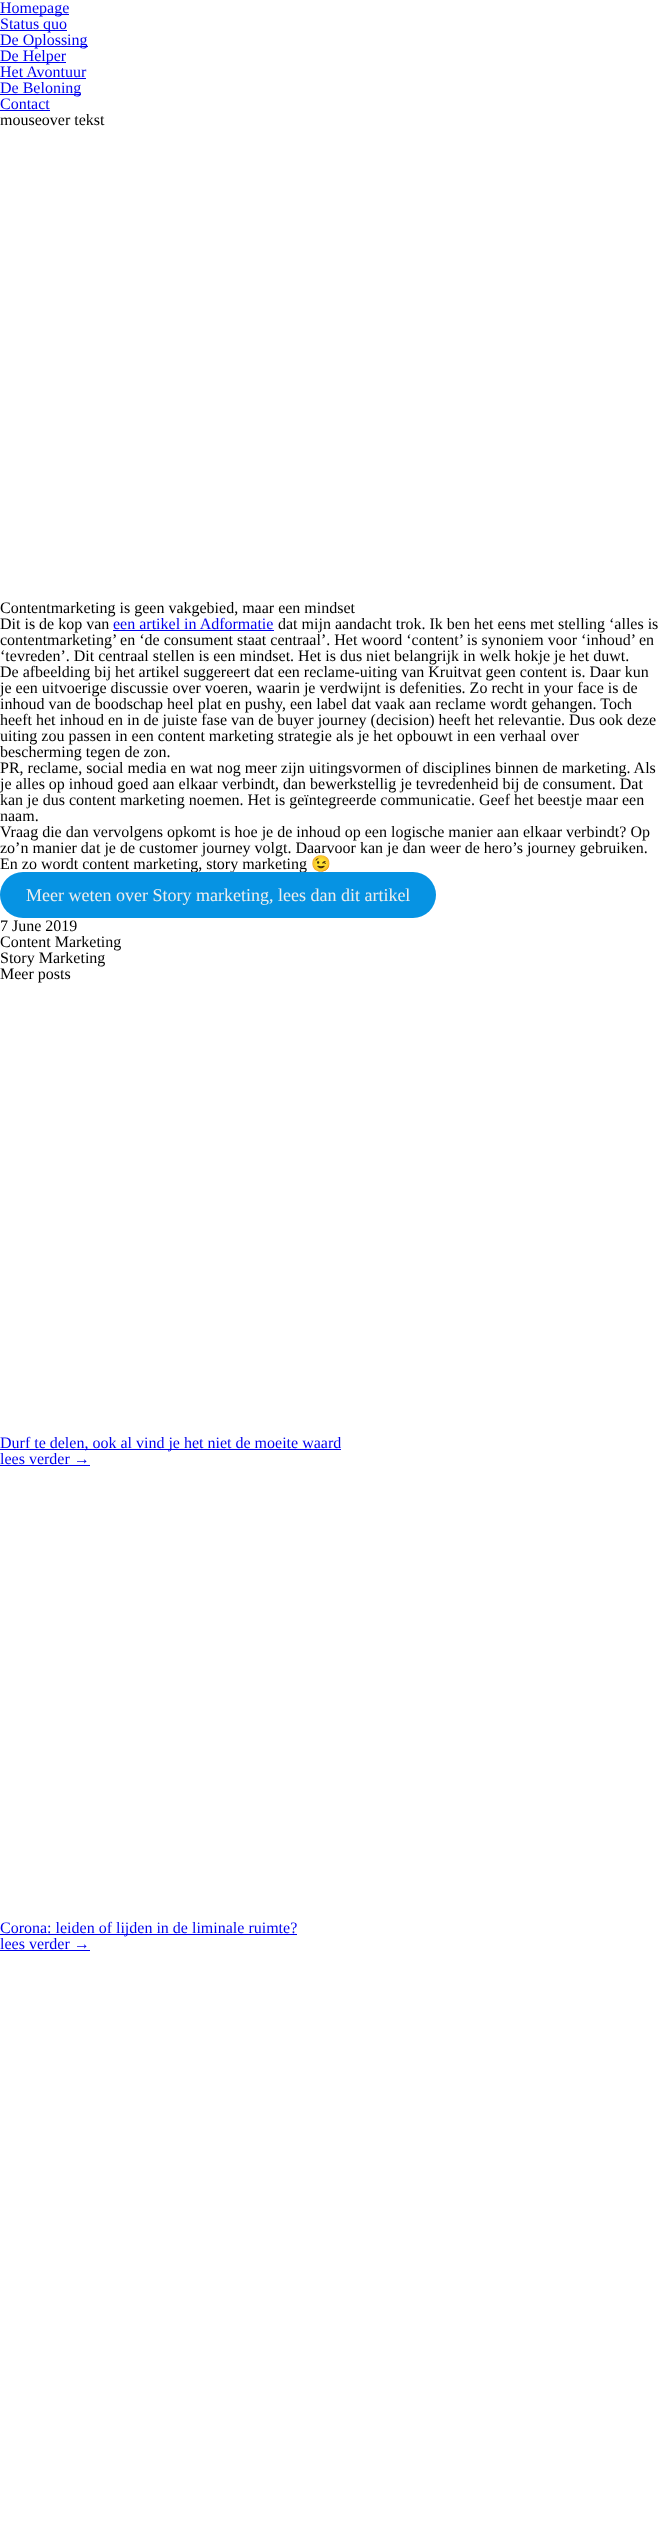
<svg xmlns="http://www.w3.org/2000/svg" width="661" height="2523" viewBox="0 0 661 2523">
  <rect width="100%" height="100%" fill="rgb(255,255,255)"/>
  <rect x="0" y="14" width="69" height="1" fill="rgb(0,0,238)"/>
  <text x="0" y="13" font-family="Liberation Serif" font-size="16" fill="rgb(0,0,238)">Homepage</text>
  <rect x="0" y="30" width="67" height="1" fill="rgb(0,0,238)"/>
  <text x="0" y="29" font-family="Liberation Serif" font-size="16" fill="rgb(0,0,238)">Status quo</text>
  <rect x="0" y="46" width="88" height="1" fill="rgb(0,0,238)"/>
  <text x="0" y="45" font-family="Liberation Serif" font-size="16" fill="rgb(0,0,238)">De Oplossing</text>
  <rect x="0" y="62" width="66" height="1" fill="rgb(0,0,238)"/>
  <g font-family="Liberation Serif" font-size="16" fill="rgb(0,0,238)">
    <text>
      <tspan x="0" y="61">De Helper</tspan>
      <tspan x="0" y="77">Het Avontuur</tspan>
    </text>
  </g>
  <rect x="0" y="78" width="86" height="1" fill="rgb(0,0,238)"/>
  <rect x="0" y="94" width="81" height="1" fill="rgb(0,0,238)"/>
  <g font-family="Liberation Serif" font-size="16" fill="rgb(0,0,238)">
    <text>
      <tspan x="0" y="93">De Beloning</tspan>
      <tspan x="0" y="109">Contact</tspan>
    </text>
  </g>
  <rect x="0" y="110" width="50" height="1" fill="rgb(0,0,238)"/>
  <g font-family="Liberation Serif" font-size="16" fill="rgb(0,0,0)">
    <text x="0" y="125">mouseover tekst</text>
    <text>
      <tspan x="0" y="613">Contentmarketing is geen vakgebied, maar een mindset</tspan>
      <tspan x="0" y="629">Dit is de kop van</tspan>
    </text>
  </g>
  <text x="113" y="629" font-family="Liberation Serif" font-size="16" fill="rgb(0,0,238)">een artikel in Adformatie</text>
  <rect x="113" y="630" width="161" height="1" fill="rgb(0,0,238)"/>
  <g font-family="Liberation Serif" font-size="16" fill="rgb(0,0,0)">
    <text x="278" y="629">dat mijn aandacht trok. Ik ben het eens met stelling ‘alles is</text>
    <text>
      <tspan x="0" y="645">contentmarketing’ en ‘de consument staat centraal’. Het woord ‘content’ is synoniem voor ‘inhoud’ en</tspan>
      <tspan x="0" y="661">‘tevreden’. Dit centraal stellen is een mindset. Het is dus niet belangrijk in welk hokje je het duwt.</tspan>
      <tspan x="0" y="677">De afbeelding bij het artikel suggereert dat een reclame-uiting van Kruitvat geen content is. Daar kun</tspan>
      <tspan x="0" y="693">je een uitvoerige discussie over voeren, waarin je verdwijnt is defenities. Zo recht in your face is de</tspan>
      <tspan x="0" y="709">inhoud van de boodschap heel plat en pushy, een label dat vaak aan reclame wordt gehangen. Toch</tspan>
      <tspan x="0" y="725">heeft het inhoud en in de juiste fase van de buyer journey (decision) heeft het relevantie. Dus ook deze</tspan>
      <tspan x="0" y="741">uiting zou passen in een content marketing strategie als je het opbouwt in een verhaal over</tspan>
      <tspan x="0" y="757">bescherming tegen de zon.</tspan>
      <tspan x="0" y="773">PR, reclame, social media en wat nog meer zijn uitingsvormen of disciplines binnen de marketing. Als</tspan>
      <tspan x="0" y="789">je alles op inhoud goed aan elkaar verbindt, dan bewerkstellig je tevredenheid bij de consument. Dat</tspan>
      <tspan x="0" y="805">kan je dus content marketing noemen. Het is geïntegreerde communicatie. Geef het beestje maar een</tspan>
      <tspan x="0" y="821">naam.</tspan>
      <tspan x="0" y="837">Vraag die dan vervolgens opkomt is hoe je de inhoud op een logische manier aan elkaar verbindt? Op</tspan>
      <tspan x="0" y="853">zo’n manier dat je de customer journey volgt. Daarvoor kan je dan weer de hero’s journey gebruiken.</tspan>
      <tspan x="0" y="869">En zo wordt content marketing, story marketing</tspan>
    </text>
  </g>
  <text x="311" y="869" font-family="Noto Color Emoji" font-size="16" fill="rgb(0,0,0)">😉</text>
  <rect x="0" y="872" width="436" height="46" rx="23" fill="rgb(6,147,227)"/>
  <text x="26" y="901" font-family="Liberation Serif" font-size="18" fill="rgb(238,238,238)">Meer weten over Story marketing, lees dan dit artikel</text>
  <g font-family="Liberation Serif" font-size="16" fill="rgb(0,0,0)">
    <text>
      <tspan x="0" y="931">7 June 2019</tspan>
      <tspan x="0" y="947">Content Marketing</tspan>
      <tspan x="0" y="963">Story Marketing</tspan>
      <tspan x="0" y="979">Meer posts</tspan>
    </text>
  </g>
  <rect x="0" y="1449" width="341" height="1" fill="rgb(0,0,238)"/>
  <g font-family="Liberation Serif" font-size="16" fill="rgb(0,0,238)">
    <text>
      <tspan x="0" y="1448">Durf te delen, ook al vind je het niet de moeite waard</tspan>
      <tspan x="0" y="1464">lees verder →</tspan>
    </text>
  </g>
  <rect x="0" y="1465" width="90" height="1" fill="rgb(0,0,238)"/>
  <rect x="0" y="1934" width="297" height="1" fill="rgb(0,0,238)"/>
  <g font-family="Liberation Serif" font-size="16" fill="rgb(0,0,238)">
    <text>
      <tspan x="0" y="1933">Corona: leiden of lijden in de liminale ruimte?</tspan>
      <tspan x="0" y="1949">lees verder →</tspan>
    </text>
  </g>
  <rect x="0" y="1950" width="90" height="1" fill="rgb(0,0,238)"/>
</svg>
